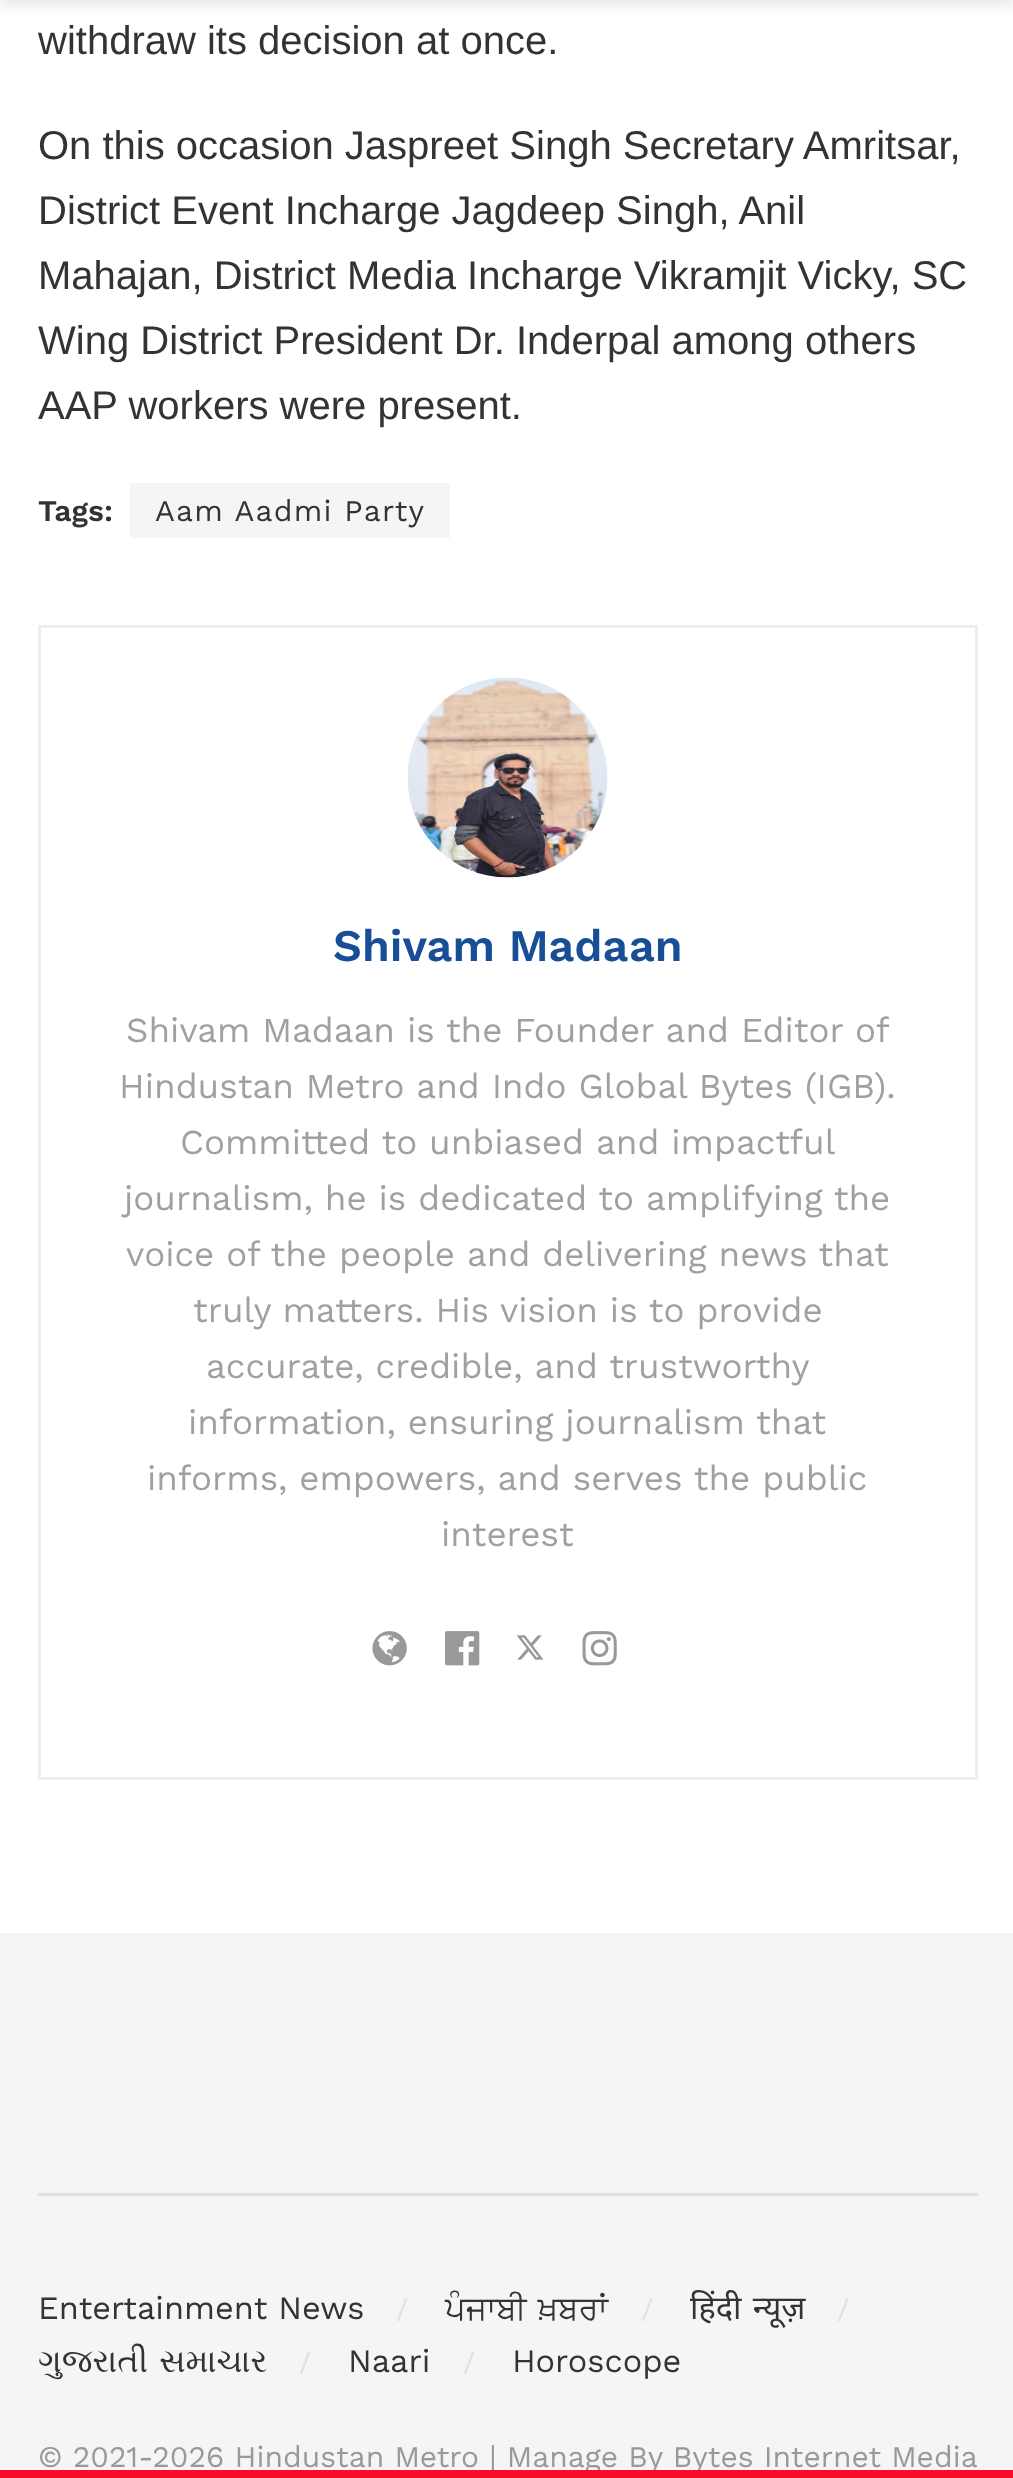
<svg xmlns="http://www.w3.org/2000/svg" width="1013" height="2478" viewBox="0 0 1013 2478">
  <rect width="100%" height="100%" fill="rgb(255,255,255)"/>
  <rect x="0" y="-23" width="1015" height="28" fill="rgba(0,0,0,0.1)" filter="blur(7.5px)"/>
  <g font-family="Liberation Sans" font-size="40" fill="rgb(51,51,51)">
    <text x="38" y="54">withdraw its decision at once.</text>
    <text>
      <tspan x="38" y="159">On this occasion Jaspreet Singh Secretary Amritsar,</tspan>
      <tspan x="38" y="224">District Event Incharge Jagdeep Singh, Anil</tspan>
      <tspan x="38" y="289">Mahajan, District Media Incharge Vikramjit Vicky, SC</tspan>
      <tspan x="38" y="354">Wing District President Dr. Inderpal among others</tspan>
      <tspan x="38" y="419">AAP workers were present.</tspan>
    </text>
  </g>
  <text x="38" y="521" font-family="Work Sans" font-size="30" font-weight="600" fill="rgb(51,51,51)">Tags:</text>
  <rect x="130" y="483" width="320" height="55" fill="rgb(245,245,245)"/>
  <text x="155" y="521" font-family="Work Sans" font-size="30" letter-spacing="1.25" fill="rgb(51,51,51)">Aam Aadmi Party</text>
  <rect x="39.5" y="626.5" width="937" height="1152" fill="none" stroke="rgb(238,238,238)" stroke-width="3"/>
  <image x="407" y="677" width="201" height="201" href="pic1.png"/>
  <text x="333" y="961" font-family="Work Sans" font-size="45" font-weight="600" fill="rgb(23,78,150)">Shivam Madaan</text>
  <g font-family="Work Sans" font-size="35" fill="rgb(160,160,160)">
    <text x="126" y="1042">Shivam Madaan is the Founder and Editor of</text>
    <text x="119" y="1098">Hindustan Metro and Indo Global Bytes (IGB).</text>
    <text x="180" y="1154">Committed to unbiased and impactful</text>
    <text x="124" y="1210">journalism, he is dedicated to amplifying the</text>
    <text x="126" y="1266">voice of the people and delivering news that</text>
    <text x="193" y="1322">truly matters. His vision is to provide</text>
    <text x="206" y="1378">accurate, credible, and trustworthy</text>
    <text x="188" y="1434">information, ensuring journalism that</text>
    <text x="147" y="1490">informs, empowers, and serves the public</text>
    <text x="441" y="1546">interest</text>
  </g>
  <image x="372" y="1631" width="35" height="35" href="pic2.png"/>
  <image x="445" y="1631" width="35" height="35" href="pic3.png"/>
  <image x="516" y="1635" width="28" height="25" href="pic4.png"/>
  <image x="582" y="1631" width="35" height="35" href="pic5.png"/>
  <rect x="0" y="1933" width="1013" height="537" fill="rgb(245,245,245)"/>
  <rect x="38" y="2193" width="940" height="3" fill="rgb(224,224,224)"/>
  <text x="38" y="2319" font-family="Work Sans" font-size="32.5" fill="rgb(51,51,51)">Entertainment News</text>
  <text x="396" y="2319" font-family="Work Sans" font-size="28" fill="rgb(224,224,224)">/</text>
  <text x="445" y="2319" word-spacing="3" font-family="FreeSans" font-size="32.5" fill="rgb(51,51,51)">ਪੰਜਾਬੀ ਖ਼ਬਰਾਂ</text>
  <text x="641" y="2319" font-family="Work Sans" font-size="28" fill="rgb(224,224,224)">/</text>
  <text x="690" y="2319" word-spacing="3" font-family="Noto Sans" font-size="32.5" fill="rgb(51,51,51)">हिंदी न्यूज़</text>
  <text x="837" y="2319" font-family="Work Sans" font-size="28" fill="rgb(224,224,224)">/</text>
  <text x="38" y="2372" word-spacing="3" font-family="FreeSerif" font-size="32.5" fill="rgb(51,51,51)">ગુજરાતી સમાચાર</text>
  <text x="299" y="2372" font-family="Work Sans" font-size="28" fill="rgb(224,224,224)">/</text>
  <text x="348" y="2372" font-family="Work Sans" font-size="32.5" fill="rgb(51,51,51)">Naari</text>
  <text x="463" y="2372" font-family="Work Sans" font-size="28" fill="rgb(224,224,224)">/</text>
  <text x="512" y="2372" font-family="Work Sans" font-size="32.5" fill="rgb(51,51,51)">Horoscope</text>
  <text x="38" y="2467" font-family="Work Sans" font-size="30" fill="rgb(153,153,153)">© 2021-2026 Hindustan Metro | Manage By Bytes Internet Media</text>
  <rect x="0" y="2470" width="1013" height="8" fill="rgb(247,13,40)"/>
</svg>
